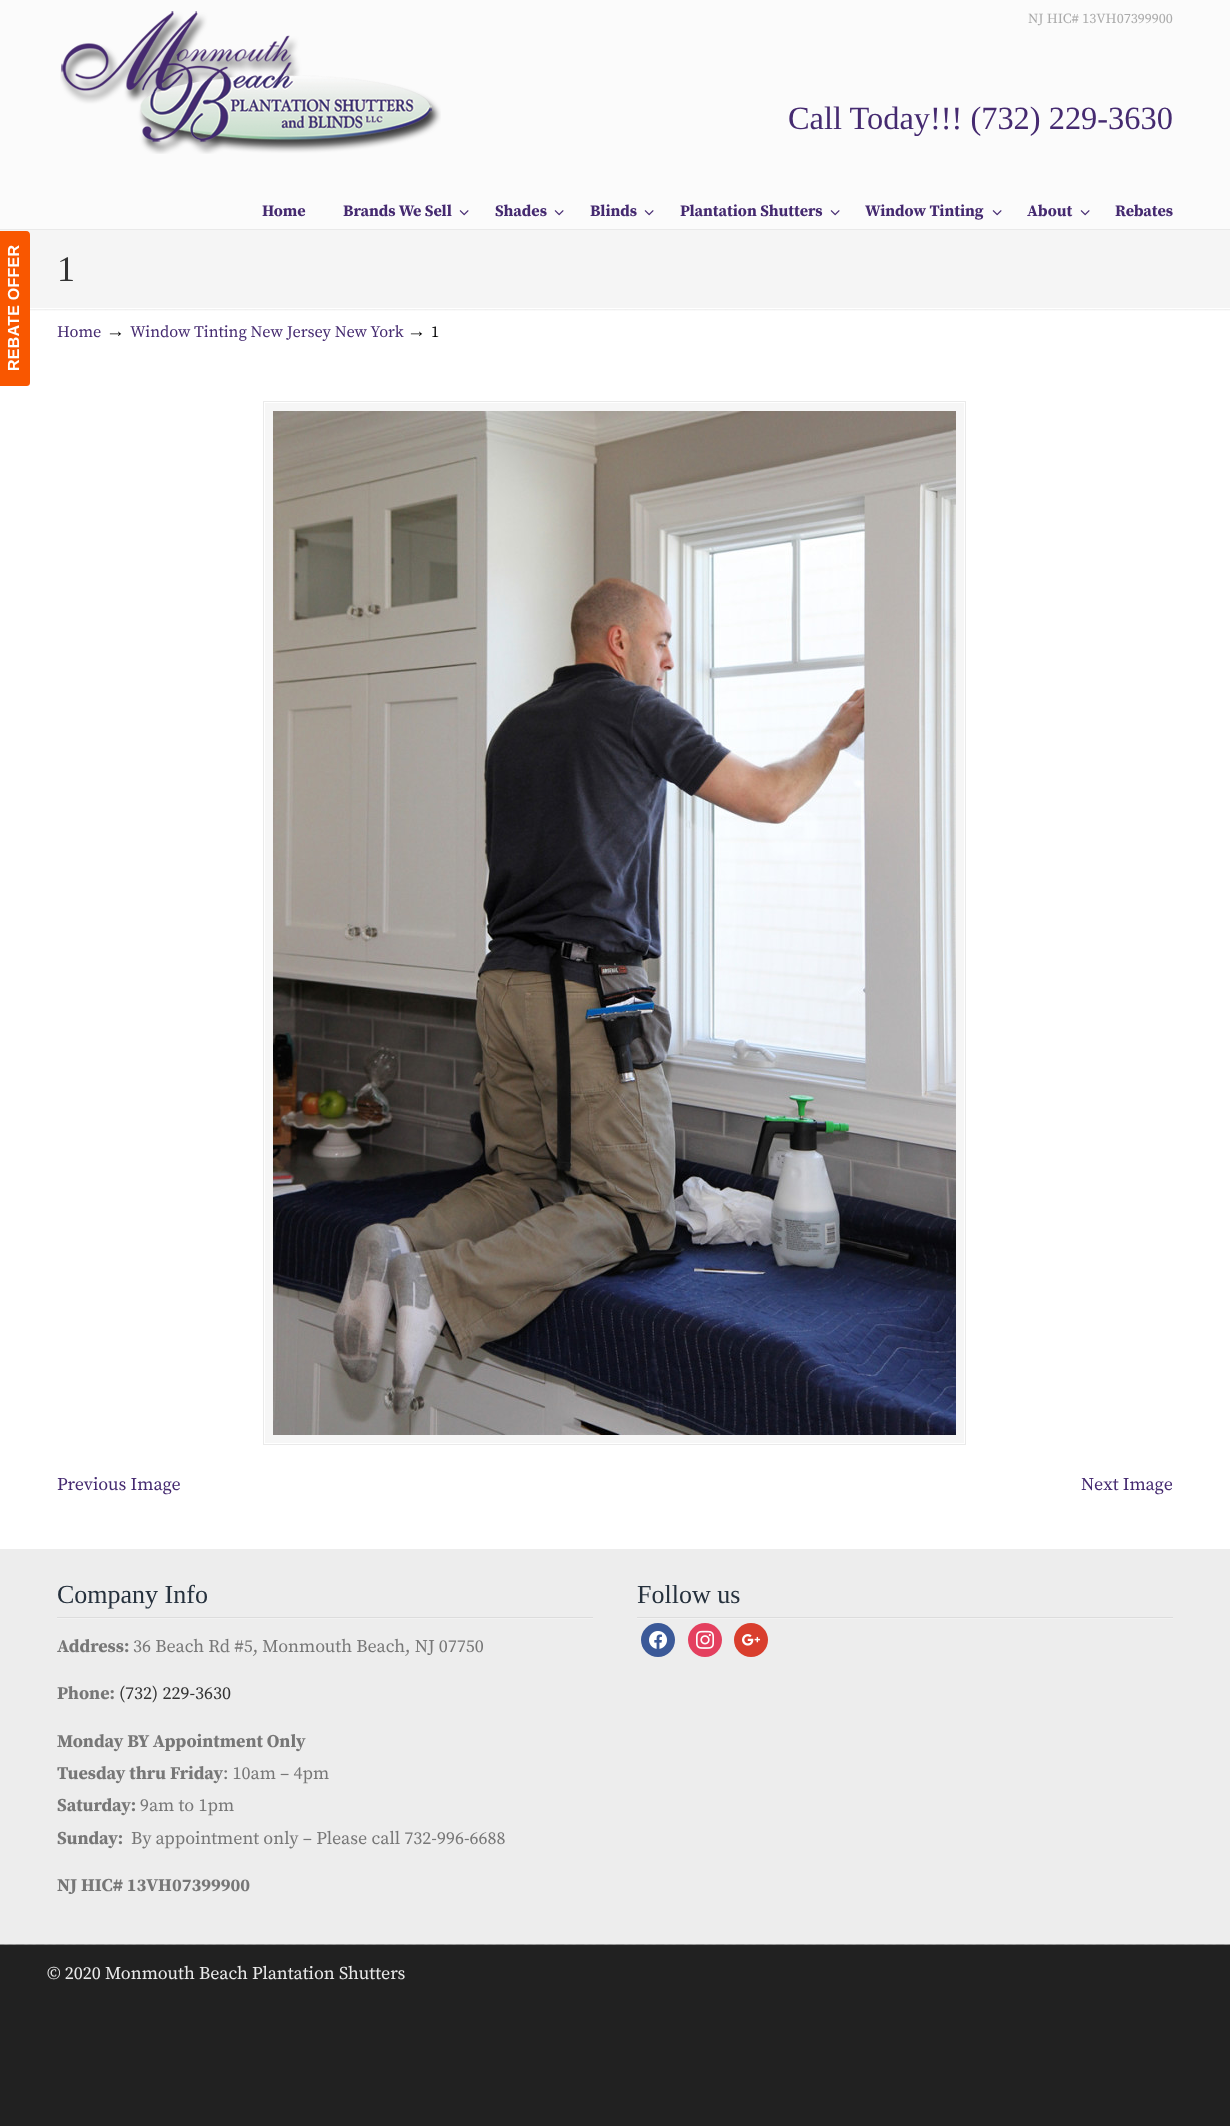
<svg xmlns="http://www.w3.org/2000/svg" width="1230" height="2126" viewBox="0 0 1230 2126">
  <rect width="100%" height="100%" fill="rgb(33,33,33)"/>
  <rect x="0" y="230" width="1230" height="78" fill="rgb(245,245,245)"/>
  <rect x="0" y="308" width="1230" height="1241" fill="rgb(255,255,255)"/>
  <path d="M-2 386V231H26C29 231 30 233 30 235V382C30 385 29 386 26 386Z" fill="rgb(249,87,0)"/>
  <text x="19" y="371" transform="rotate(-90 19 371)" font-family="Liberation Sans" font-size="16" font-weight="bold" letter-spacing="0.25" fill="rgb(255,255,255)">REBATE OFFER</text>
  <rect x="0" y="0" width="1230" height="229" fill="rgb(251,251,251)"/>
  <image x="60" y="11" width="381" height="143" href="pic1.png"/>
  <text x="1028" y="23" font-family="Source Serif Pro" font-size="14" fill="rgb(170,170,170)">NJ HIC# 13VH07399900</text>
  <text x="788" y="129" font-family="Liberation Serif" font-size="32.4" fill="rgb(69,42,112)">Call Today!!! (732) 229-3630</text>
  <g font-family="Source Serif Pro" font-size="16" font-weight="bold" fill="rgb(69,42,112)">
    <text x="262" y="216">Home</text>
    <text x="343" y="216">Brands We Sell</text>
  </g>
  <image x="459" y="210" width="10" height="6" href="pic2.png"/>
  <text x="495" y="216" font-family="Source Serif Pro" font-size="16" font-weight="bold" fill="rgb(69,42,112)">Shades</text>
  <image x="554" y="210" width="10" height="6" href="pic2.png"/>
  <text x="590" y="216" font-family="Source Serif Pro" font-size="16" font-weight="bold" fill="rgb(69,42,112)">Blinds</text>
  <image x="644" y="210" width="10" height="6" href="pic2.png"/>
  <text x="680" y="216" font-family="Source Serif Pro" font-size="16" font-weight="bold" fill="rgb(69,42,112)">Plantation Shutters</text>
  <image x="830" y="210" width="10" height="6" href="pic2.png"/>
  <text x="865" y="216" font-family="Source Serif Pro" font-size="16" font-weight="bold" fill="rgb(69,42,112)">Window Tinting</text>
  <image x="992" y="210" width="10" height="6" href="pic2.png"/>
  <text x="1027" y="216" font-family="Source Serif Pro" font-size="16" font-weight="bold" fill="rgb(69,42,112)">About</text>
  <image x="1080" y="210" width="10" height="6" href="pic2.png"/>
  <text x="1115" y="216" font-family="Source Serif Pro" font-size="16" font-weight="bold" fill="rgb(69,42,112)">Rebates</text>
  <rect x="0" y="229" width="1230" height="1" fill="rgb(233,233,233)"/>
  <text x="57" y="281" font-family="Liberation Serif" font-size="36" fill="rgb(51,51,51)">1</text>
  <image x="30" y="309" width="1200" height="2" href="pic3.png"/>
  <text x="57" y="337" font-family="Source Serif Pro" font-size="16.25" fill="rgb(69,42,112)">Home</text>
  <text x="106" y="337" font-family="Liberation Serif" font-size="19" fill="rgb(0,0,0)">→</text>
  <text x="130" y="337" font-family="Source Serif Pro" font-size="16.25" fill="rgb(69,42,112)">Window Tinting New Jersey New York</text>
  <text x="407" y="337" font-family="Liberation Serif" font-size="19" fill="rgb(0,0,0)">→</text>
  <text x="431" y="337" font-family="Source Serif Pro" font-size="16.25" fill="rgb(0,0,0)">1</text>
  <rect x="265" y="403" width="699" height="1040" fill="rgb(246,246,246)"/>
  <rect x="263.5" y="401.5" width="702" height="1043" fill="none" stroke="rgb(234,234,234)"/>
  <image x="273" y="411" width="683" height="1024" href="pic4.png"/>
  <g font-family="Source Serif Pro" font-size="18" fill="rgb(69,42,112)">
    <text x="57" y="1490">Previous Image</text>
    <text x="1081" y="1490">Next Image</text>
  </g>
  <rect x="0" y="1549" width="1230" height="395" fill="rgb(237,237,237)"/>
  <image x="57" y="1617" width="536" height="2" href="pic5.png"/>
  <text x="57" y="1603" font-family="Liberation Serif" font-size="26" fill="rgb(38,49,61)">Company Info</text>
  <text x="57" y="1652" font-family="Source Serif Pro" font-size="18" font-weight="bold" fill="rgb(119,119,119)">Address:</text>
  <text x="133" y="1652" font-family="Source Serif Pro" font-size="18" fill="rgb(119,119,119)">36 Beach Rd #5, Monmouth Beach, NJ 07750</text>
  <text x="57" y="1699" font-family="Source Serif Pro" font-size="18" font-weight="bold" fill="rgb(119,119,119)">Phone:</text>
  <text x="119" y="1699" font-family="Source Serif Pro" font-size="18" fill="rgb(51,51,51)">(732) 229-3630</text>
  <g font-family="Source Serif Pro" font-size="18" font-weight="bold" fill="rgb(119,119,119)">
    <text>
      <tspan x="57" y="1747">Monday BY Appointment Only</tspan>
      <tspan x="57" y="1779">Tuesday thru Friday</tspan>
    </text>
  </g>
  <text x="223" y="1779" font-family="Source Serif Pro" font-size="18" fill="rgb(119,119,119)">: 10am – 4pm</text>
  <text x="57" y="1811" font-family="Source Serif Pro" font-size="18" font-weight="bold" fill="rgb(119,119,119)">Saturday:</text>
  <text x="140" y="1811" font-family="Source Serif Pro" font-size="18" fill="rgb(119,119,119)">9am to 1pm</text>
  <text x="57" y="1844" font-family="Source Serif Pro" font-size="18" font-weight="bold" fill="rgb(119,119,119)">Sunday:</text>
  <text x="131" y="1844" font-family="Source Serif Pro" font-size="18" fill="rgb(119,119,119)">By appointment only – Please call 732-996-6688</text>
  <text x="57" y="1891" font-family="Source Serif Pro" font-size="18" font-weight="bold" fill="rgb(119,119,119)">NJ HIC# 13VH07399900</text>
  <image x="637" y="1617" width="536" height="2" href="pic5.png"/>
  <text x="637" y="1603" font-family="Liberation Serif" font-size="26" fill="rgb(38,49,61)">Follow us</text>
  <circle cx="658" cy="1640" r="17" fill="rgb(59,89,152)"/>
  <image x="649" y="1631" width="18" height="18" href="pic6.png"/>
  <circle cx="705" cy="1640" r="17" fill="rgb(228,64,95)"/>
  <image x="696" y="1630" width="18" height="19" href="pic7.png"/>
  <circle cx="751" cy="1640" r="17" fill="rgb(217,62,45)"/>
  <image x="742" y="1634" width="19" height="12" href="pic8.png"/>
  <image x="0" y="1944" width="1230" height="1" href="pic9.png"/>
  <text x="47" y="1979" font-family="Source Serif Pro" font-size="18" fill="rgb(235,235,235)">© 2020 Monmouth Beach Plantation Shutters</text>
</svg>
